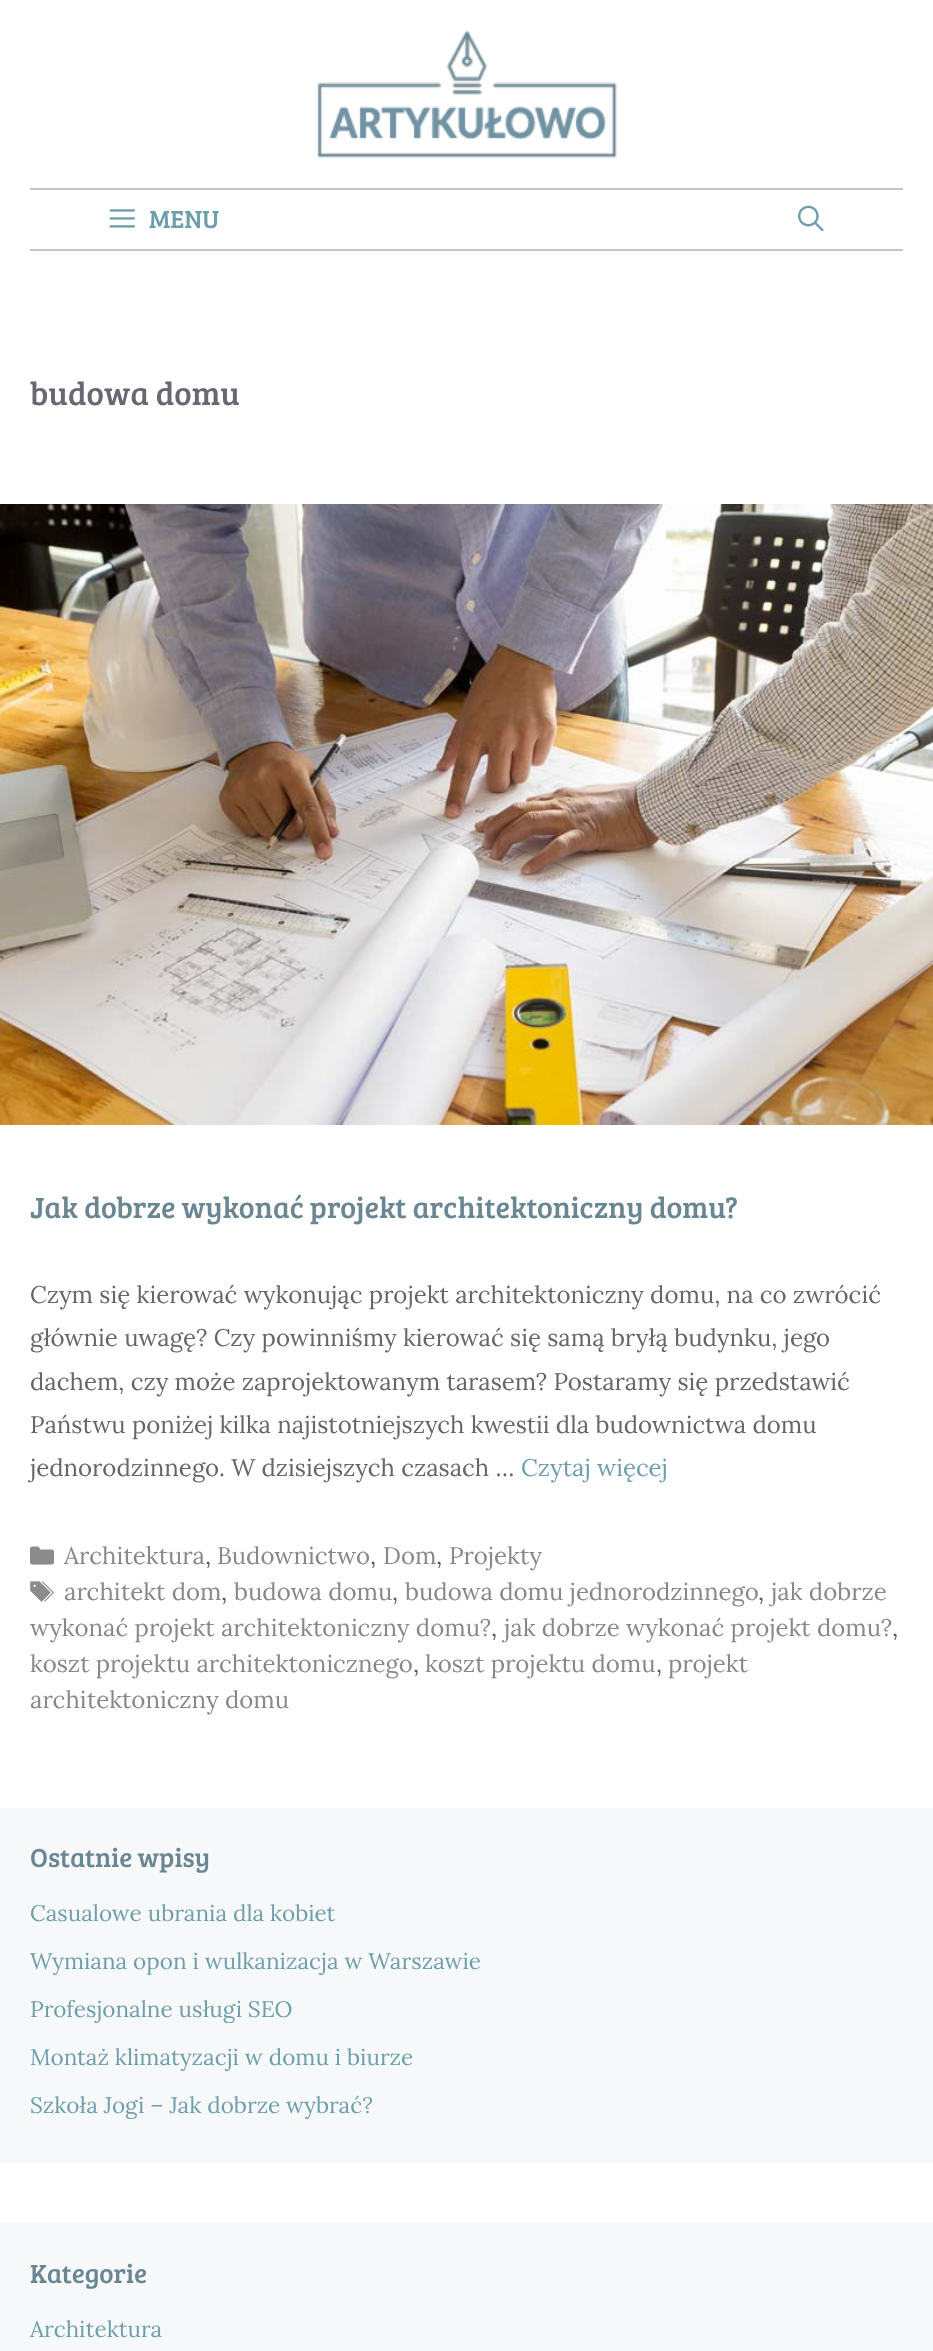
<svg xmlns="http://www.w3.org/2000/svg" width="933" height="2351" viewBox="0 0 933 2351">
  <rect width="100%" height="100%" fill="rgb(255,255,255)"/>
  <image x="317" y="31" width="300" height="127" href="pic1.png"/>
  <rect x="30" y="188" width="873" height="2" fill="rgb(196,196,196)"/>
  <rect x="30" y="249" width="873" height="2" fill="rgb(196,196,196)"/>
  <image x="109" y="209" width="26" height="19" href="pic2.png"/>
  <text x="149" y="228" font-family="Bree Serif" font-size="25.5" fill="rgb(109,159,170)">MENU</text>
  <image x="798" y="205" width="26" height="27" href="pic3.png"/>
  <text x="30" y="405" font-family="Bree Serif" font-size="33" fill="rgb(103,104,114)">budowa domu</text>
  <image x="0" y="504" width="933" height="621" href="pic4.png"/>
  <text x="30" y="1218" font-family="Bree Serif" font-size="30" fill="rgb(106,134,147)">Jak dobrze wykonać projekt architektoniczny domu?</text>
  <g font-family="Lora" font-size="24" fill="rgb(102,102,102)">
    <text>
      <tspan x="30" y="1303">Czym się kierować wykonując projekt architektoniczny domu, na co zwrócić</tspan>
      <tspan x="30" y="1346">głównie uwagę? Czy powinniśmy kierować się samą bryłą budynku, jego</tspan>
      <tspan x="30" y="1390">dachem, czy może zaprojektowanym tarasem? Postaramy się przedstawić</tspan>
      <tspan x="30" y="1433">Państwu poniżej kilka najistotniejszych kwestii dla budownictwa domu</tspan>
      <tspan x="30" y="1476">jednorodzinnego. W dzisiejszych czasach …</tspan>
    </text>
  </g>
  <text x="521" y="1476" font-family="Lora" font-size="24" fill="rgb(109,159,170)">Czytaj więcej</text>
  <image x="30" y="1546" width="24" height="19" href="pic5.png"/>
  <text x="64" y="1564" font-family="Lora" font-size="24" fill="rgb(136,136,136)">Architektura</text>
  <text x="205" y="1564" font-family="Lora" font-size="24" fill="rgb(89,89,89)">,</text>
  <text x="217" y="1564" font-family="Lora" font-size="24" fill="rgb(136,136,136)">Budownictwo</text>
  <text x="370" y="1564" font-family="Lora" font-size="24" fill="rgb(89,89,89)">,</text>
  <text x="383" y="1564" font-family="Lora" font-size="24" fill="rgb(136,136,136)">Dom</text>
  <text x="436" y="1564" font-family="Lora" font-size="24" fill="rgb(89,89,89)">,</text>
  <text x="449" y="1564" font-family="Lora" font-size="24" fill="rgb(136,136,136)">Projekty</text>
  <image x="30" y="1581" width="24" height="21" href="pic6.png"/>
  <text x="64" y="1600" font-family="Lora" font-size="24" fill="rgb(136,136,136)">architekt dom</text>
  <text x="221" y="1600" font-family="Lora" font-size="24" fill="rgb(89,89,89)">,</text>
  <text x="234" y="1600" font-family="Lora" font-size="24" fill="rgb(136,136,136)">budowa domu</text>
  <text x="392" y="1600" font-family="Lora" font-size="24" fill="rgb(89,89,89)">,</text>
  <text x="405" y="1600" font-family="Lora" font-size="24" fill="rgb(136,136,136)">budowa domu jednorodzinnego</text>
  <text x="758" y="1600" font-family="Lora" font-size="24" fill="rgb(89,89,89)">,</text>
  <g font-family="Lora" font-size="24" fill="rgb(136,136,136)">
    <text x="771" y="1600">jak dobrze</text>
    <text x="30" y="1636">wykonać projekt architektoniczny domu?</text>
  </g>
  <text x="491" y="1636" font-family="Lora" font-size="24" fill="rgb(89,89,89)">,</text>
  <text x="504" y="1636" font-family="Lora" font-size="24" fill="rgb(136,136,136)">jak dobrze wykonać projekt domu?</text>
  <text x="892" y="1636" font-family="Lora" font-size="24" fill="rgb(89,89,89)">,</text>
  <text x="30" y="1672" font-family="Lora" font-size="24" fill="rgb(136,136,136)">koszt projektu architektonicznego</text>
  <text x="413" y="1672" font-family="Lora" font-size="24" fill="rgb(89,89,89)">,</text>
  <text x="425" y="1672" font-family="Lora" font-size="24" fill="rgb(136,136,136)">koszt projektu domu</text>
  <text x="656" y="1672" font-family="Lora" font-size="24" fill="rgb(89,89,89)">,</text>
  <g font-family="Lora" font-size="24" fill="rgb(136,136,136)">
    <text x="668" y="1672">projekt</text>
    <text x="30" y="1708">architektoniczny domu</text>
  </g>
  <rect x="0" y="1808" width="933" height="355" fill="rgb(247,248,249)"/>
  <text x="30" y="1867" font-family="Bree Serif" font-size="27" fill="rgb(106,134,147)">Ostatnie wpisy</text>
  <g font-family="Lora" font-size="22.5" fill="rgb(109,159,170)">
    <text x="30" y="1921">Casualowe ubrania dla kobiet</text>
    <text x="30" y="1969">Wymiana opon i wulkanizacja w Warszawie</text>
    <text x="30" y="2017">Profesjonalne usługi SEO</text>
    <text x="30" y="2065">Montaż klimatyzacji w domu i biurze</text>
    <text x="30" y="2113">Szkoła Jogi – Jak dobrze wybrać?</text>
  </g>
  <rect x="0" y="2223" width="933" height="128" fill="rgb(247,248,249)"/>
  <text x="30" y="2283" font-family="Bree Serif" font-size="27" fill="rgb(106,134,147)">Kategorie</text>
  <text x="30" y="2337" font-family="Lora" font-size="22.5" fill="rgb(109,159,170)">Architektura</text>
</svg>
